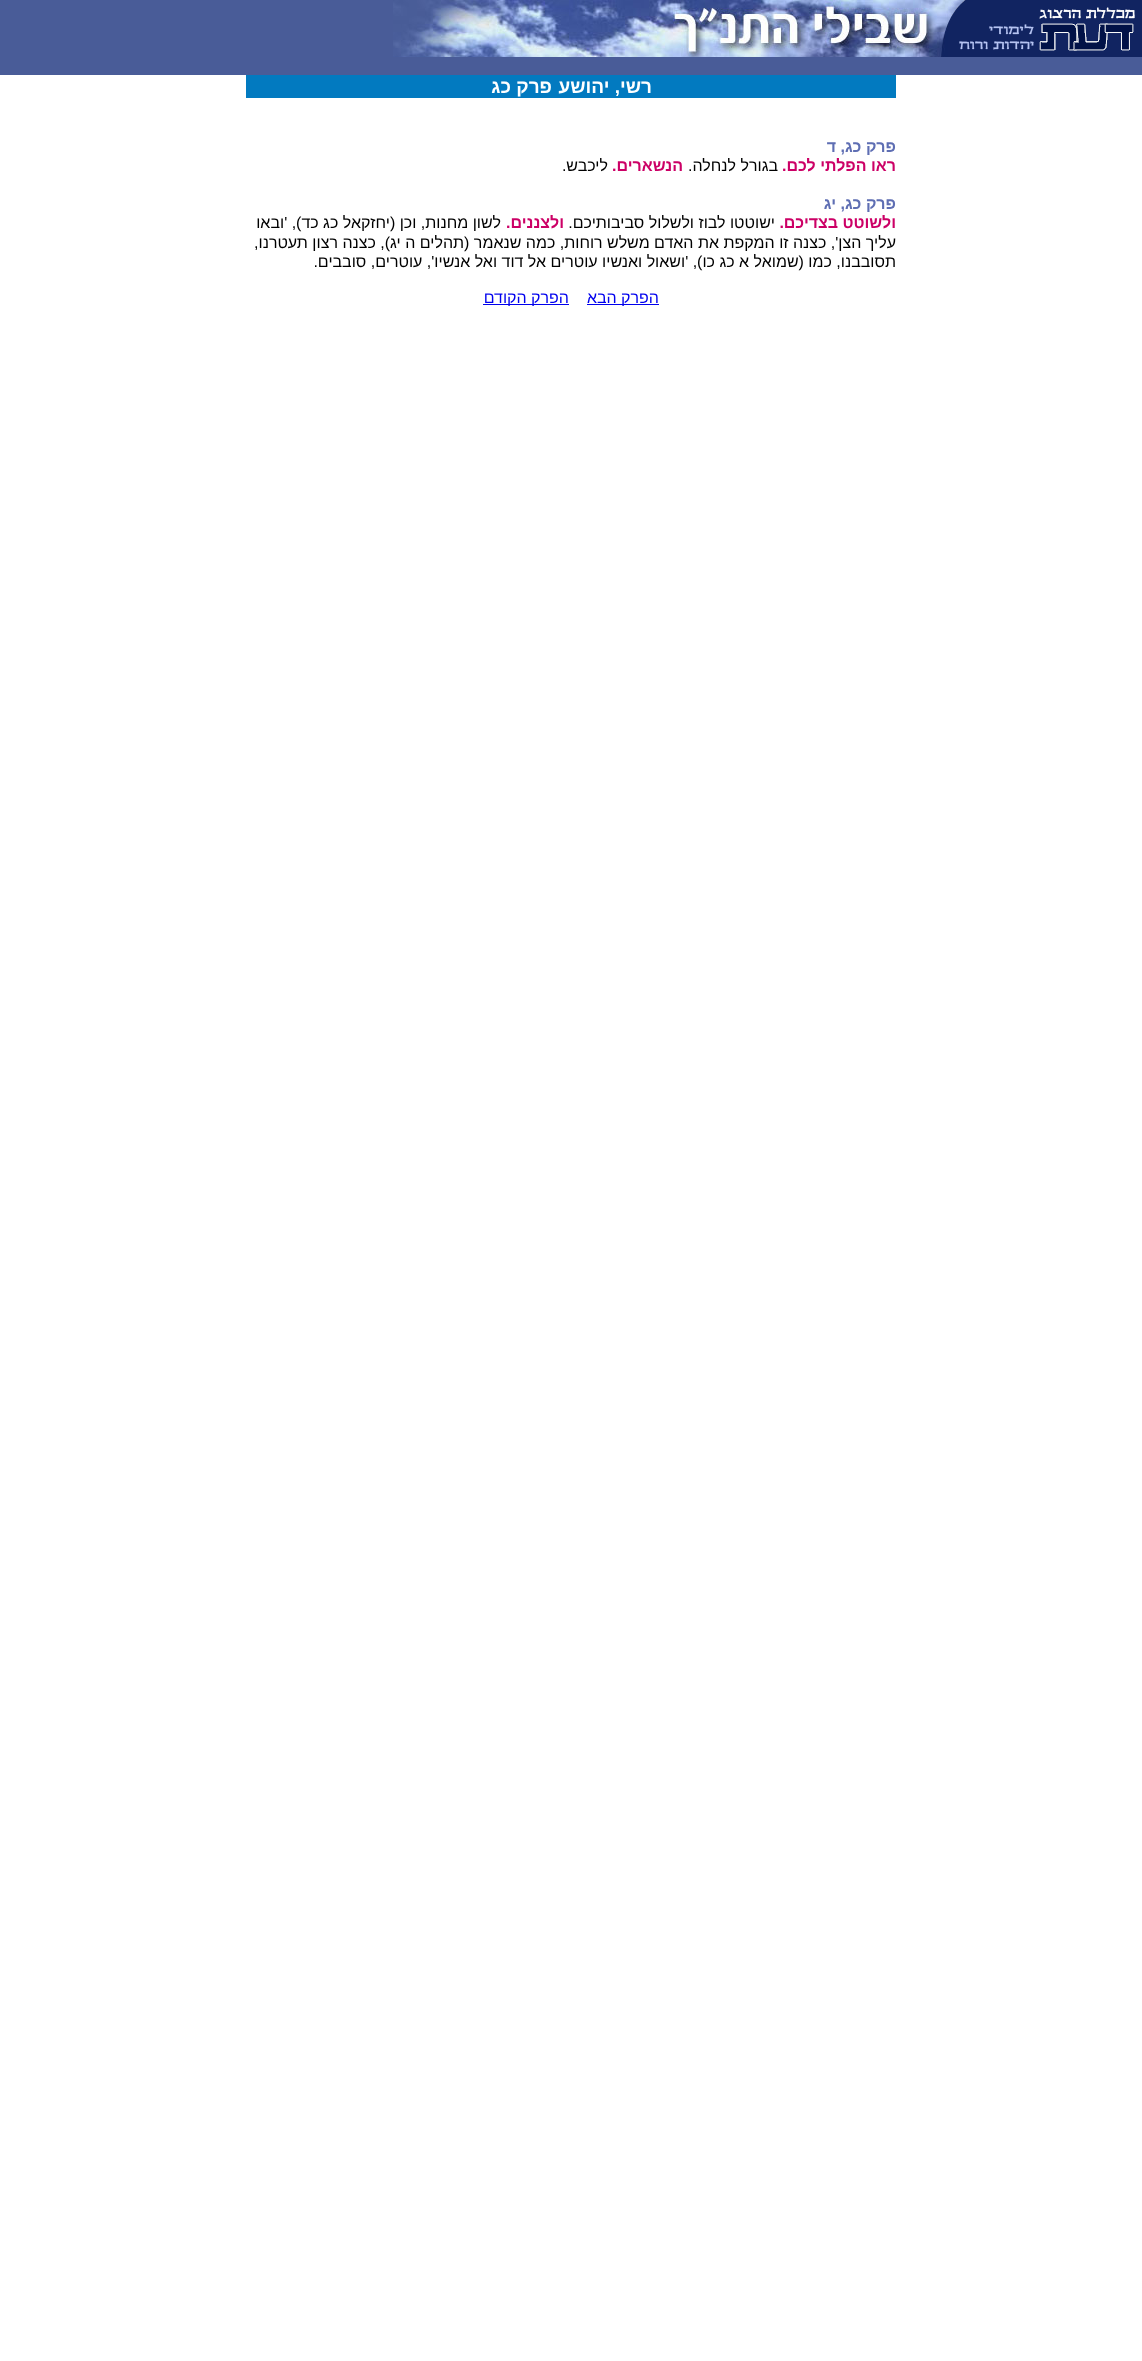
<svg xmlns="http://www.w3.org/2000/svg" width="1142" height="2361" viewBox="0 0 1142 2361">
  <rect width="100%" height="100%" fill="rgb(255,255,255)"/>
  <image x="948" y="0" width="194" height="57" href="pic1.png"/>
  <rect x="0" y="0" width="393" height="57" fill="rgb(73,92,152)"/>
  <image x="393" y="0" width="555" height="57" href="pic2.png"/>
  <rect x="0" y="57" width="1142" height="18" fill="rgb(73,92,152)"/>
  <rect x="246" y="75" width="650" height="23" fill="rgb(2,122,192)"/>
  <g font-family="Liberation Sans" font-size="19" font-weight="bold" direction="rtl" fill="rgb(255,255,255)">
    <text x="652" y="93">רשי, יהושע</text>
    <text x="552" y="93">פרק כג</text>
  </g>
  <text x="896" y="152" font-family="Liberation Sans" font-size="16" font-weight="bold" direction="rtl" fill="rgb(94,110,179)">פרק כג, ד</text>
  <text x="896" y="171" font-family="Liberation Sans" font-size="16" font-weight="bold" direction="rtl" fill="rgb(204,0,102)">ראו הפלתי לכם.</text>
  <text x="778" y="171" font-family="Liberation Sans" font-size="16" direction="rtl" fill="rgb(0,0,0)">בגורל לנחלה.</text>
  <text x="683" y="171" font-family="Liberation Sans" font-size="16" font-weight="bold" direction="rtl" fill="rgb(204,0,102)">הנשארים.</text>
  <text x="608" y="171" font-family="Liberation Sans" font-size="16" direction="rtl" fill="rgb(0,0,0)">ליכבש.</text>
  <text x="896" y="209" font-family="Liberation Sans" font-size="16" font-weight="bold" direction="rtl" fill="rgb(94,110,179)">פרק כג, יג</text>
  <text x="896" y="228" font-family="Liberation Sans" font-size="16" font-weight="bold" direction="rtl" fill="rgb(204,0,102)">ולשוטט בצדיכם.</text>
  <text x="775" y="228" font-family="Liberation Sans" font-size="16" direction="rtl" fill="rgb(0,0,0)">ישוטטו לבוז ולשלול סביבותיכם.</text>
  <text x="564" y="228" font-family="Liberation Sans" font-size="16" font-weight="bold" direction="rtl" fill="rgb(204,0,102)">ולצננים.</text>
  <g font-family="Liberation Sans" font-size="16" direction="rtl" fill="rgb(0,0,0)">
    <text x="501" y="228">לשון מחנות, וכן (יחזקאל כג כד), 'ובאו</text>
    <text>
      <tspan x="896" y="248">עליך הצן', כצנה זו המקפת את האדם משלש רוחות, כמה שנאמר (תהלים ה יג), כצנה רצון תעטרנו,</tspan>
      <tspan x="896" y="267">תסובבנו, כמו (שמואל א כג כו), 'ושאול ואנשיו עוטרים אל דוד ואל אנשיו', עוטרים, סובבים.</tspan>
    </text>
  </g>
  <rect x="587" y="304" width="72" height="1" fill="rgb(0,0,238)"/>
  <text x="659" y="303" font-family="Liberation Sans" font-size="16" direction="rtl" fill="rgb(0,0,238)">הפרק הבא</text>
  <rect x="483" y="304" width="86" height="1" fill="rgb(0,0,238)"/>
  <text x="569" y="303" font-family="Liberation Sans" font-size="16" direction="rtl" fill="rgb(0,0,238)">הפרק הקודם</text>
</svg>
